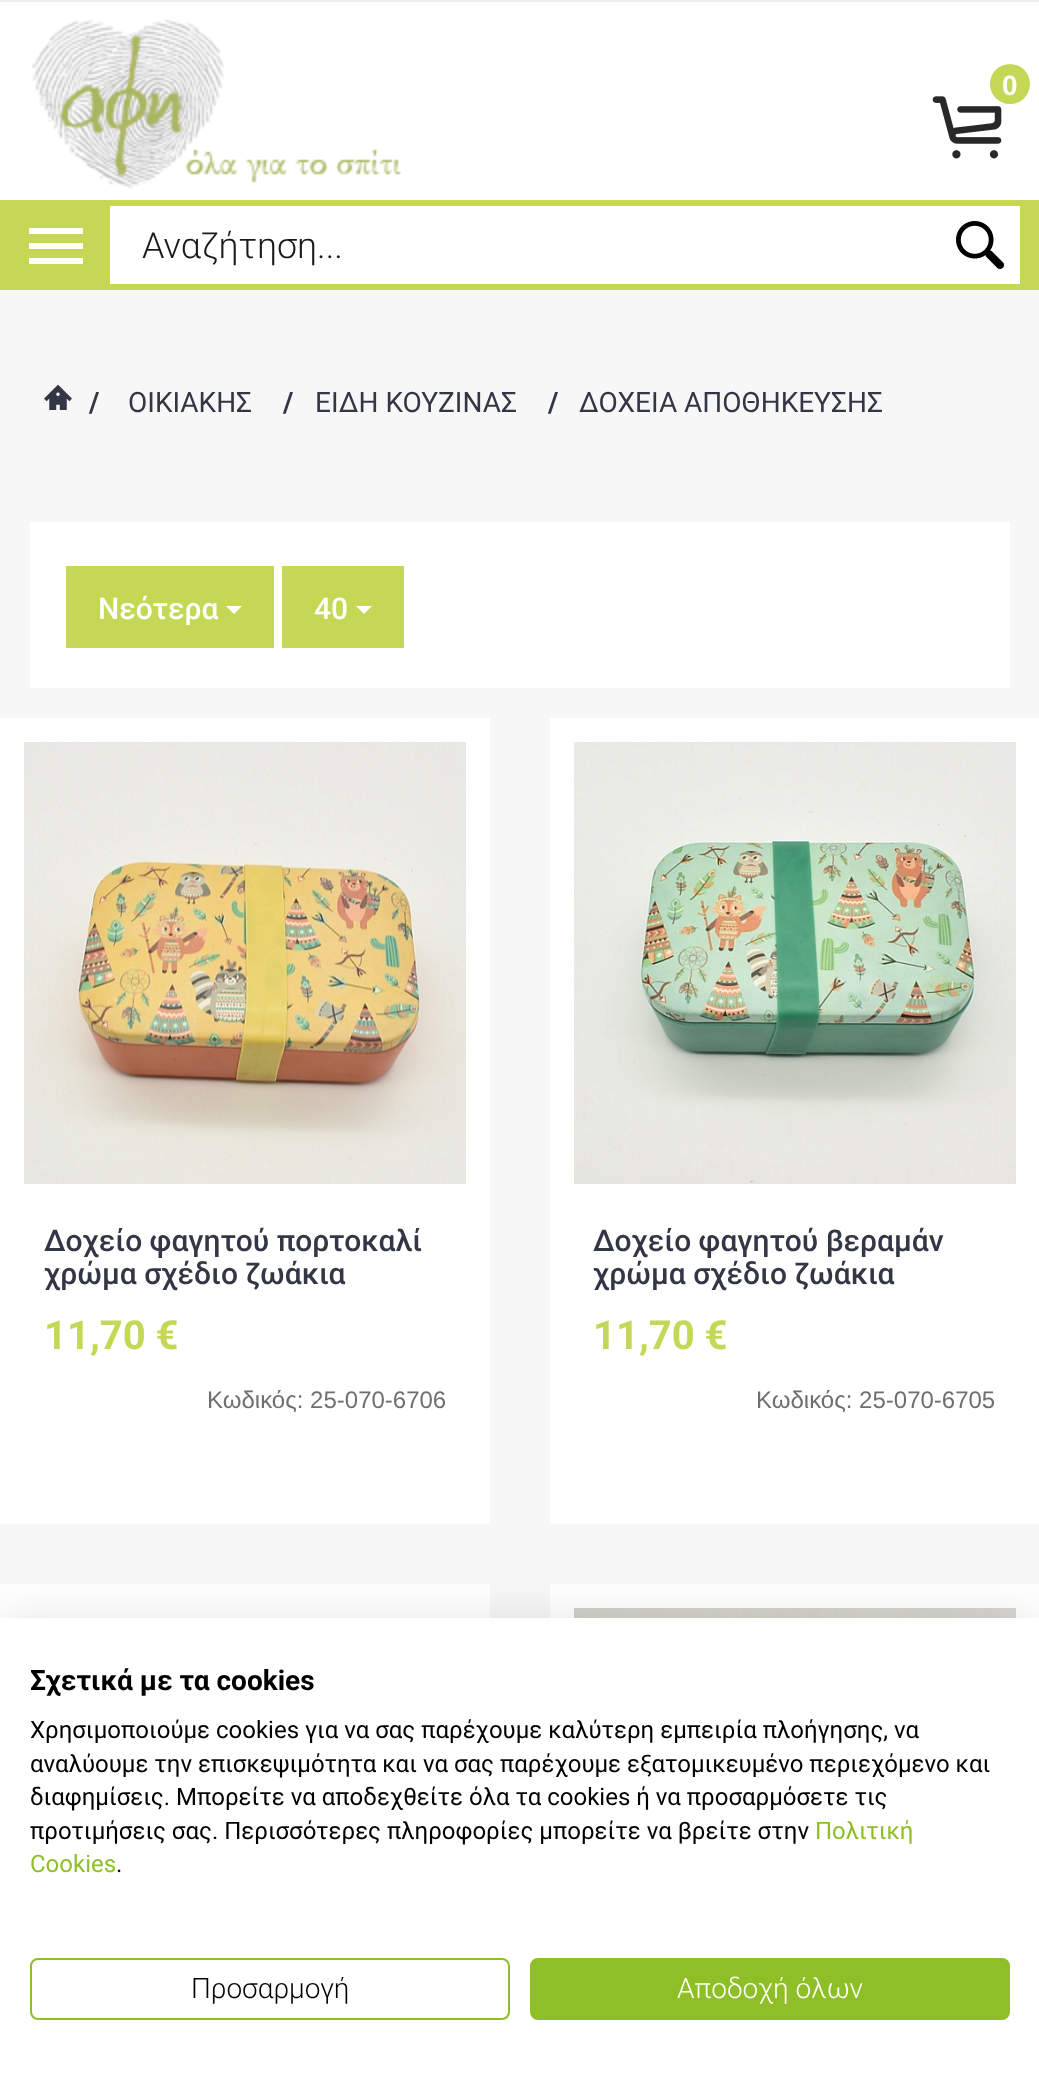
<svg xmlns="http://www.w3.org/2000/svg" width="1039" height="2074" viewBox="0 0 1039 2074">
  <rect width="100%" height="100%" fill="rgb(247,247,247)"/>
  <rect x="0" y="2" width="1039" height="198" fill="rgb(255,255,255)"/>
  <image x="932" y="96" width="70" height="63" href="pic1.png"/>
  <circle cx="1010" cy="84" r="20" fill="rgb(196,216,85)"/>
  <text x="1002" y="95" font-family="Liberation Sans" font-size="28" font-weight="bold" fill="rgb(255,255,255)">0</text>
  <rect x="0" y="200" width="1039" height="90" fill="rgb(196,216,85)"/>
  <path d="M29 228H83V234H29ZM29 249V243H83V249ZM29 264V258H83V264Z" fill="rgb(255,255,255)"/>
  <image x="31" y="19" width="371" height="170" href="pic2.png"/>
  <rect x="0" y="0" width="1039" height="2" fill="rgb(237,237,237)"/>
  <rect x="110" y="206" width="910" height="78" fill="rgb(255,255,255)"/>
  <text x="142" y="258" font-family="Roboto" font-size="36" font-weight="300" fill="rgb(25,25,25)">Αναζήτηση...</text>
  <image x="956" y="221" width="48" height="48" href="pic3.png"/>
  <image x="44" y="384" width="28" height="26" href="pic4.png"/>
  <text x="89" y="412" font-family="Roboto" font-size="28" font-weight="bold" fill="rgb(51,55,69)">/</text>
  <text x="128" y="412" font-family="Roboto" font-size="28" fill="rgb(51,55,69)">ΟΙΚΙΑΚΗΣ</text>
  <text x="283" y="412" font-family="Roboto" font-size="28" font-weight="bold" fill="rgb(51,55,69)">/</text>
  <text x="315" y="412" font-family="Roboto" font-size="28" fill="rgb(51,55,69)">ΕΙΔΗ ΚΟΥΖΙΝΑΣ</text>
  <text x="548" y="412" font-family="Roboto" font-size="28" font-weight="bold" fill="rgb(51,55,69)">/</text>
  <text x="579" y="412" font-family="Roboto" font-size="28" fill="rgb(51,55,69)">ΔΟΧΕΙΑ ΑΠΟΘΗΚΕΥΣΗΣ</text>
  <rect x="30" y="522" width="980" height="166" fill="rgb(255,255,255)"/>
  <rect x="66" y="566" width="208" height="82" fill="rgb(196,216,85)"/>
  <text x="98" y="619" font-family="Roboto" font-size="30" font-weight="500" fill="rgb(255,255,255)">Νεότερα</text>
  <path d="M226 606H242L234 614Z" fill="rgb(255,255,255)"/>
  <rect x="282" y="566" width="122" height="82" fill="rgb(196,216,85)"/>
  <text x="314" y="619" font-family="Roboto" font-size="30" font-weight="500" fill="rgb(255,255,255)">40</text>
  <path d="M356 606H372L364 614Z" fill="rgb(255,255,255)"/>
  <rect x="0" y="718" width="490" height="806" fill="rgb(255,255,255)"/>
  <image x="24" y="742" width="442" height="442" href="pic5.png"/>
  <g font-family="Roboto" font-size="30" font-weight="500" fill="rgb(51,55,69)">
    <text>
      <tspan x="44" y="1251">Δοχείο φαγητού πορτοκαλί</tspan>
      <tspan x="44" y="1284">χρώμα σχέδιο ζωάκια</tspan>
    </text>
  </g>
  <text x="44" y="1349" font-family="Roboto" font-size="40" font-weight="bold" fill="rgb(196,216,85)">11,70 €</text>
  <text x="207" y="1408" font-family="Liberation Sans" font-size="24" fill="rgb(111,111,111)">Κωδικός: 25-070-6706</text>
  <rect x="550" y="718" width="489" height="806" fill="rgb(255,255,255)"/>
  <image x="574" y="742" width="442" height="442" href="pic6.png"/>
  <g font-family="Roboto" font-size="30" font-weight="500" fill="rgb(51,55,69)">
    <text>
      <tspan x="593" y="1251">Δοχείο φαγητού βεραμάν</tspan>
      <tspan x="593" y="1284">χρώμα σχέδιο ζωάκια</tspan>
    </text>
  </g>
  <text x="593" y="1349" font-family="Roboto" font-size="40" font-weight="bold" fill="rgb(196,216,85)">11,70 €</text>
  <text x="756" y="1408" font-family="Liberation Sans" font-size="24" fill="rgb(111,111,111)">Κωδικός: 25-070-6705</text>
  <rect x="0" y="1584" width="490" height="34" fill="rgb(255,255,255)"/>
  <rect x="550" y="1584" width="489" height="34" fill="rgb(255,255,255)"/>
  <image x="574" y="1608" width="442" height="10" href="pic7.png"/>
  <rect x="0" y="1618" width="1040" height="456" fill="rgba(0,0,0,0.1)" filter="blur(24px)"/>
  <rect x="0" y="1618" width="1039" height="456" fill="rgb(255,255,255)"/>
  <text x="30" y="1690" font-family="Roboto" font-size="28" font-weight="bold" fill="rgb(0,0,0)">Σχετικά με τα cookies</text>
  <g font-family="Roboto" font-size="24" fill="rgb(0,0,0)">
    <text>
      <tspan x="30" y="1738">Χρησιμοποιούμε cookies για να σας παρέχουμε καλύτερη εμπειρία πλοήγησης, να</tspan>
      <tspan x="30" y="1772">αναλύουμε την επισκεψιμότητα και να σας παρέχουμε εξατομικευμένο περιεχόμενο και</tspan>
      <tspan x="30" y="1805">διαφημίσεις. Μπορείτε να αποδεχθείτε όλα τα cookies ή να προσαρμόσετε τις</tspan>
      <tspan x="30" y="1839">προτιμήσεις σας. Περισσότερες πληροφορίες μπορείτε να βρείτε στην</tspan>
    </text>
  </g>
  <g font-family="Roboto" font-size="24" fill="rgb(142,191,38)">
    <text x="815" y="1839">Πολιτική</text>
    <text x="30" y="1872">Cookies</text>
  </g>
  <text x="116" y="1872" font-family="Roboto" font-size="24" fill="rgb(0,0,0)">.</text>
  <rect x="31" y="1959" width="478" height="60" rx="7" fill="none" stroke="rgb(142,191,38)" stroke-width="2"/>
  <text x="191" y="1998" font-family="Roboto" font-size="28" font-weight="300" fill="rgb(0,0,0)">Προσαρμογή</text>
  <rect x="531" y="1959" width="478" height="60" rx="7" fill="rgb(142,191,38)" stroke="rgb(142,191,38)" stroke-width="2"/>
  <text x="677" y="1998" font-family="Roboto" font-size="28" font-weight="300" fill="rgb(255,255,255)">Αποδοχή όλων</text>
</svg>
